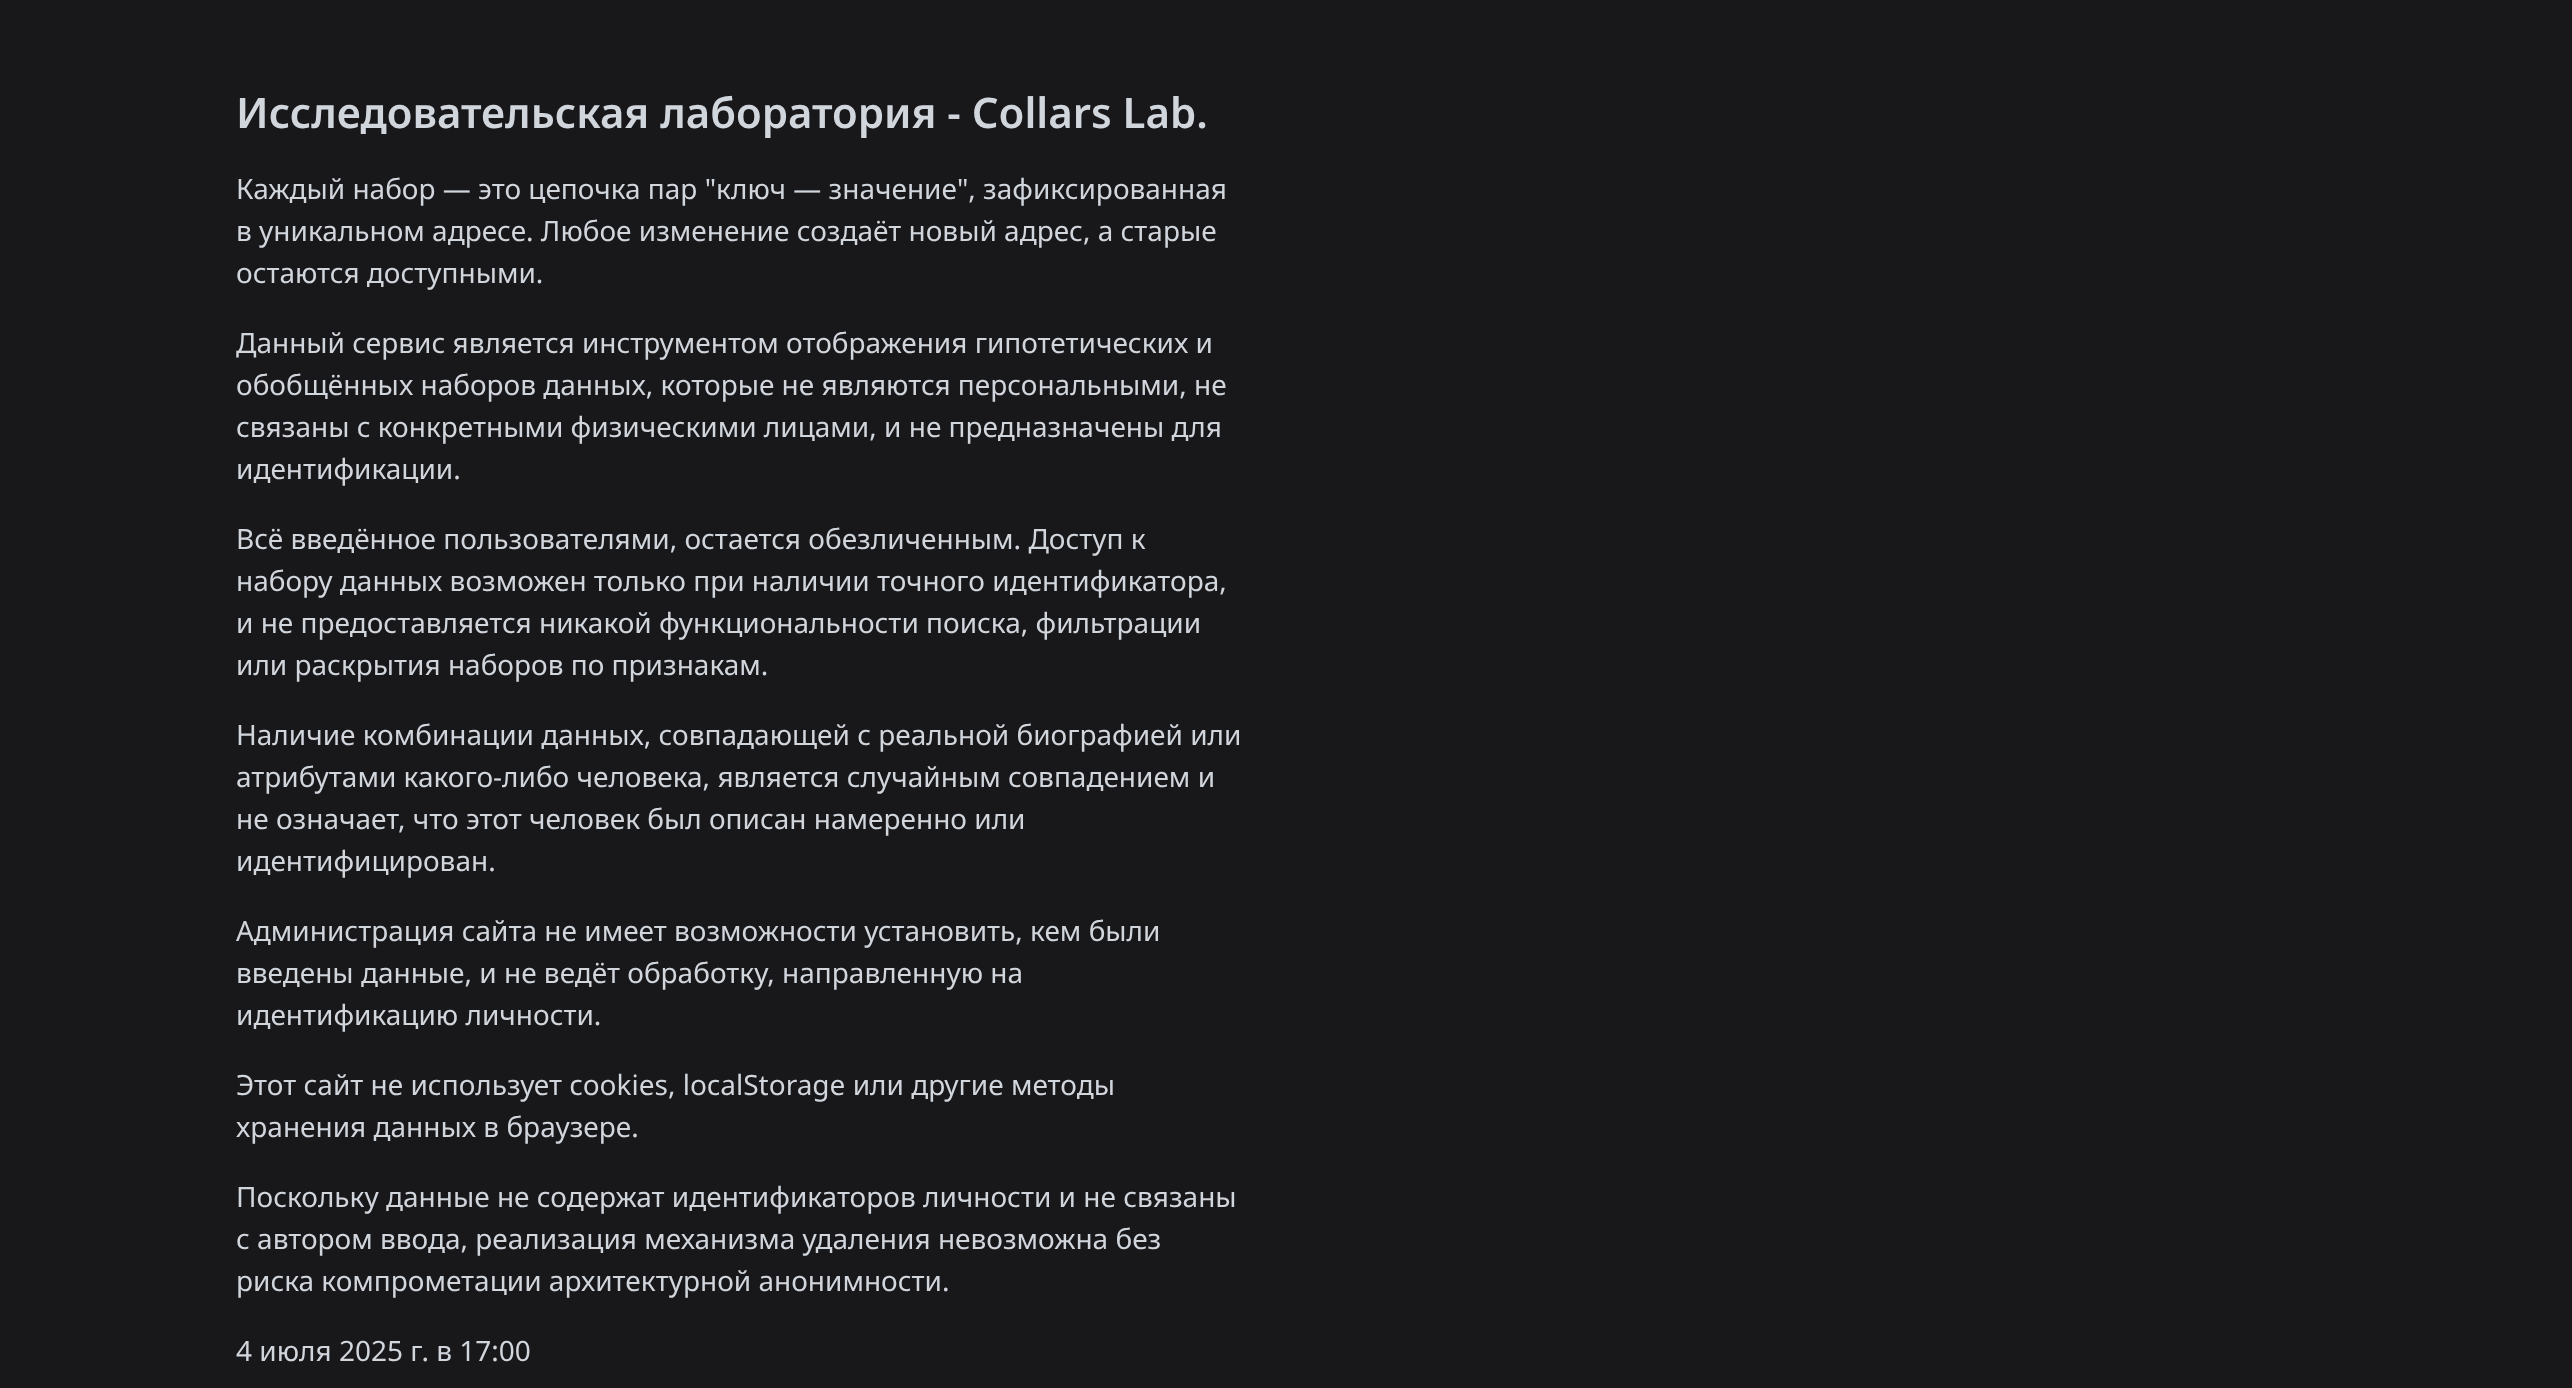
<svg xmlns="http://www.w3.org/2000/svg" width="2572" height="1388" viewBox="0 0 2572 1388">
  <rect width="100%" height="100%" fill="rgb(24,24,27)"/>
  <text x="236" y="128" font-family="Noto Sans" font-size="42" font-weight="600" fill="rgb(209,213,220)">Исследовательская лаборатория - Collars Lab.</text>
  <g font-family="Noto Sans" font-size="28" fill="rgb(209,213,220)">
    <text>
      <tspan x="236" y="199">Каждый набор — это цепочка пар "ключ — значение", зафиксированная</tspan>
      <tspan x="236" y="241">в уникальном адресе. Любое изменение создаёт новый адрес, а старые</tspan>
      <tspan x="236" y="283">остаются доступными.</tspan>
    </text>
    <text>
      <tspan x="236" y="353">Данный сервис является инструментом отображения гипотетических и</tspan>
      <tspan x="236" y="395">обобщённых наборов данных, которые не являются персональными, не</tspan>
      <tspan x="236" y="437">связаны с конкретными физическими лицами, и не предназначены для</tspan>
      <tspan x="236" y="479">идентификации.</tspan>
    </text>
    <text>
      <tspan x="236" y="549">Всё введённое пользователями, остается обезличенным. Доступ к</tspan>
      <tspan x="236" y="591">набору данных возможен только при наличии точного идентификатора,</tspan>
      <tspan x="236" y="633">и не предоставляется никакой функциональности поиска, фильтрации</tspan>
      <tspan x="236" y="675">или раскрытия наборов по признакам.</tspan>
    </text>
    <text>
      <tspan x="236" y="745">Наличие комбинации данных, совпадающей с реальной биографией или</tspan>
      <tspan x="236" y="787">атрибутами какого-либо человека, является случайным совпадением и</tspan>
      <tspan x="236" y="829">не означает, что этот человек был описан намеренно или</tspan>
      <tspan x="236" y="871">идентифицирован.</tspan>
    </text>
    <text>
      <tspan x="236" y="941">Администрация сайта не имеет возможности установить, кем были</tspan>
      <tspan x="236" y="983">введены данные, и не ведёт обработку, направленную на</tspan>
      <tspan x="236" y="1025">идентификацию личности.</tspan>
    </text>
    <text>
      <tspan x="236" y="1095">Этот сайт не использует cookies, localStorage или другие методы</tspan>
      <tspan x="236" y="1137">хранения данных в браузере.</tspan>
    </text>
    <text>
      <tspan x="236" y="1207">Поскольку данные не содержат идентификаторов личности и не связаны</tspan>
      <tspan x="236" y="1249">с автором ввода, реализация механизма удаления невозможна без</tspan>
      <tspan x="236" y="1291">риска компрометации архитектурной анонимности.</tspan>
    </text>
    <text x="236" y="1361">4 июля 2025 г. в 17:00</text>
  </g>
</svg>
